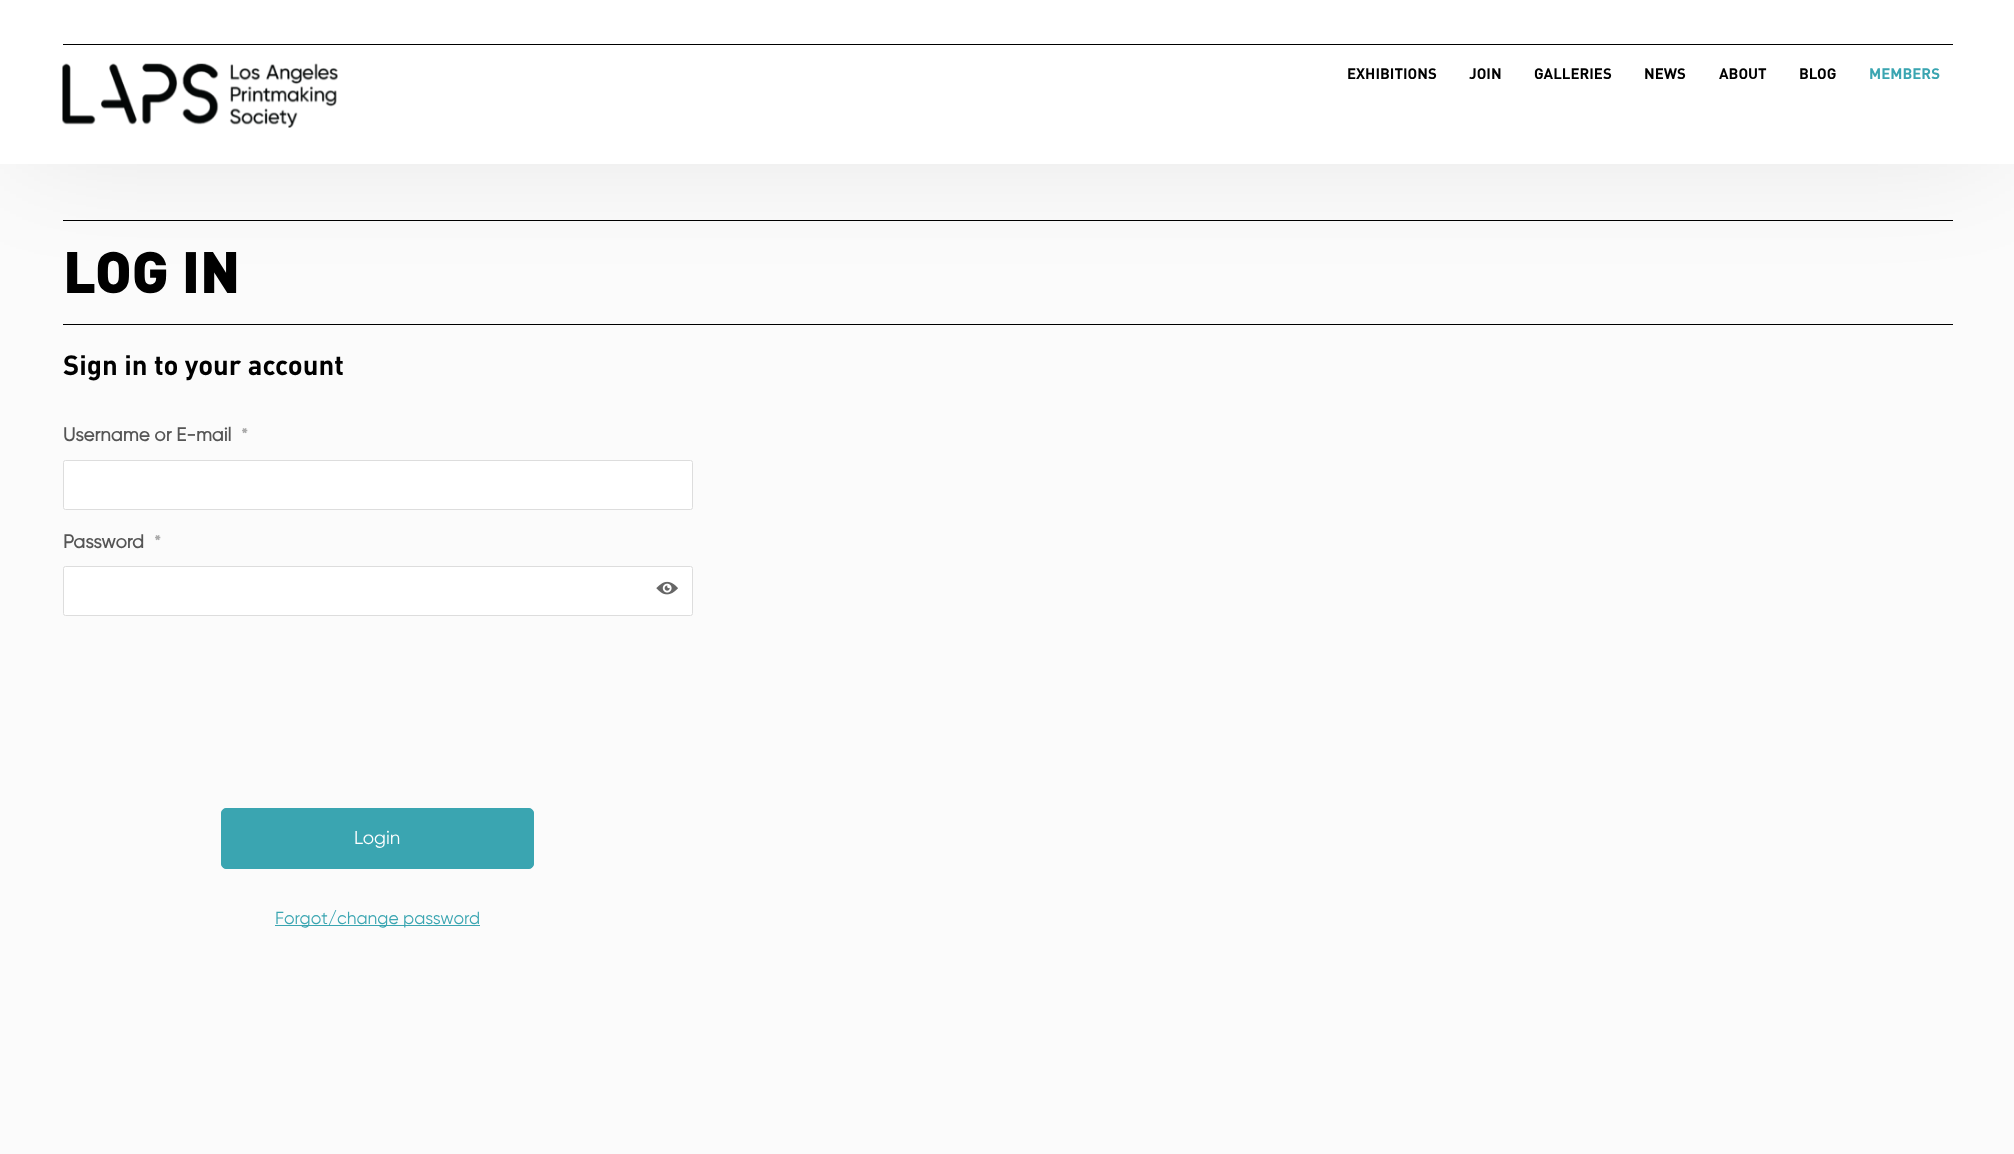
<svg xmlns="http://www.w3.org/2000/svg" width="2014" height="1154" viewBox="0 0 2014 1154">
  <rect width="100%" height="100%" fill="rgb(251,251,251)"/>
  <rect x="63" y="220" width="1890" height="1" fill="rgb(0,0,0)"/>
  <rect x="63" y="324" width="1890" height="1" fill="rgb(0,0,0)"/>
  <rect x="19" y="19" width="1977" height="126" fill="rgba(0,0,0,0.1)" filter="blur(62.5px)"/>
  <rect x="0" y="0" width="2014" height="164" fill="rgb(255,255,255)"/>
  <rect x="63" y="44" width="1890" height="1" fill="rgb(0,0,0)"/>
  <image x="62" y="63" width="276" height="65" href="pic1.png"/>
  <g font-family="DIN" font-size="15" font-weight="bold" fill="rgb(0,0,0)">
    <text x="1347" y="79">EXHIBITIONS</text>
    <text x="1469" y="79">JOIN</text>
    <text x="1534" y="79">GALLERIES</text>
    <text x="1644" y="79">NEWS</text>
    <text x="1719" y="79">ABOUT</text>
    <text x="1799" y="79">BLOG</text>
  </g>
  <text x="1869" y="79" font-family="DIN" font-size="15" font-weight="bold" fill="rgb(58,165,177)">MEMBERS</text>
  <text x="63" y="293" font-family="DIN" font-size="57.5" font-weight="900" fill="rgb(0,0,0)">LOG IN</text>
  <text x="63" y="375" font-family="DIN" font-size="27.5" font-weight="bold" fill="rgb(0,0,0)">Sign in to your account</text>
  <text x="63" y="441" font-family="Gilroy" font-size="18.75" font-weight="bold" fill="rgb(85,85,85)">Username or E-mail</text>
  <text x="241" y="441" font-family="Gilroy" font-size="17.5" font-weight="bold" fill="rgb(170,170,170)">*</text>
  <rect x="63.5" y="460.5" width="629" height="49" rx="2" fill="rgb(255,255,255)" stroke="rgb(221,221,221)"/>
  <text x="63" y="548" font-family="Gilroy" font-size="18.75" font-weight="bold" fill="rgb(85,85,85)">Password</text>
  <text x="154" y="548" font-family="Gilroy" font-size="17.5" font-weight="bold" fill="rgb(170,170,170)">*</text>
  <rect x="63.5" y="566.5" width="629" height="49" rx="2" fill="rgb(255,255,255)" stroke="rgb(221,221,221)"/>
  <image x="656" y="581" width="22" height="14" href="pic2.png"/>
  <rect x="221.5" y="808.5" width="312" height="60" rx="4.5" fill="rgb(58,165,177)" stroke="rgb(58,165,177)"/>
  <text x="354" y="844" font-family="Gilroy" font-size="18.75" fill="rgb(255,255,255)">Login</text>
  <rect x="275" y="925" width="205" height="1" fill="rgb(58,165,177)"/>
  <text x="275" y="924" font-family="Gilroy" font-size="17.5" fill="rgb(58,165,177)">Forgot/change password</text>
</svg>
